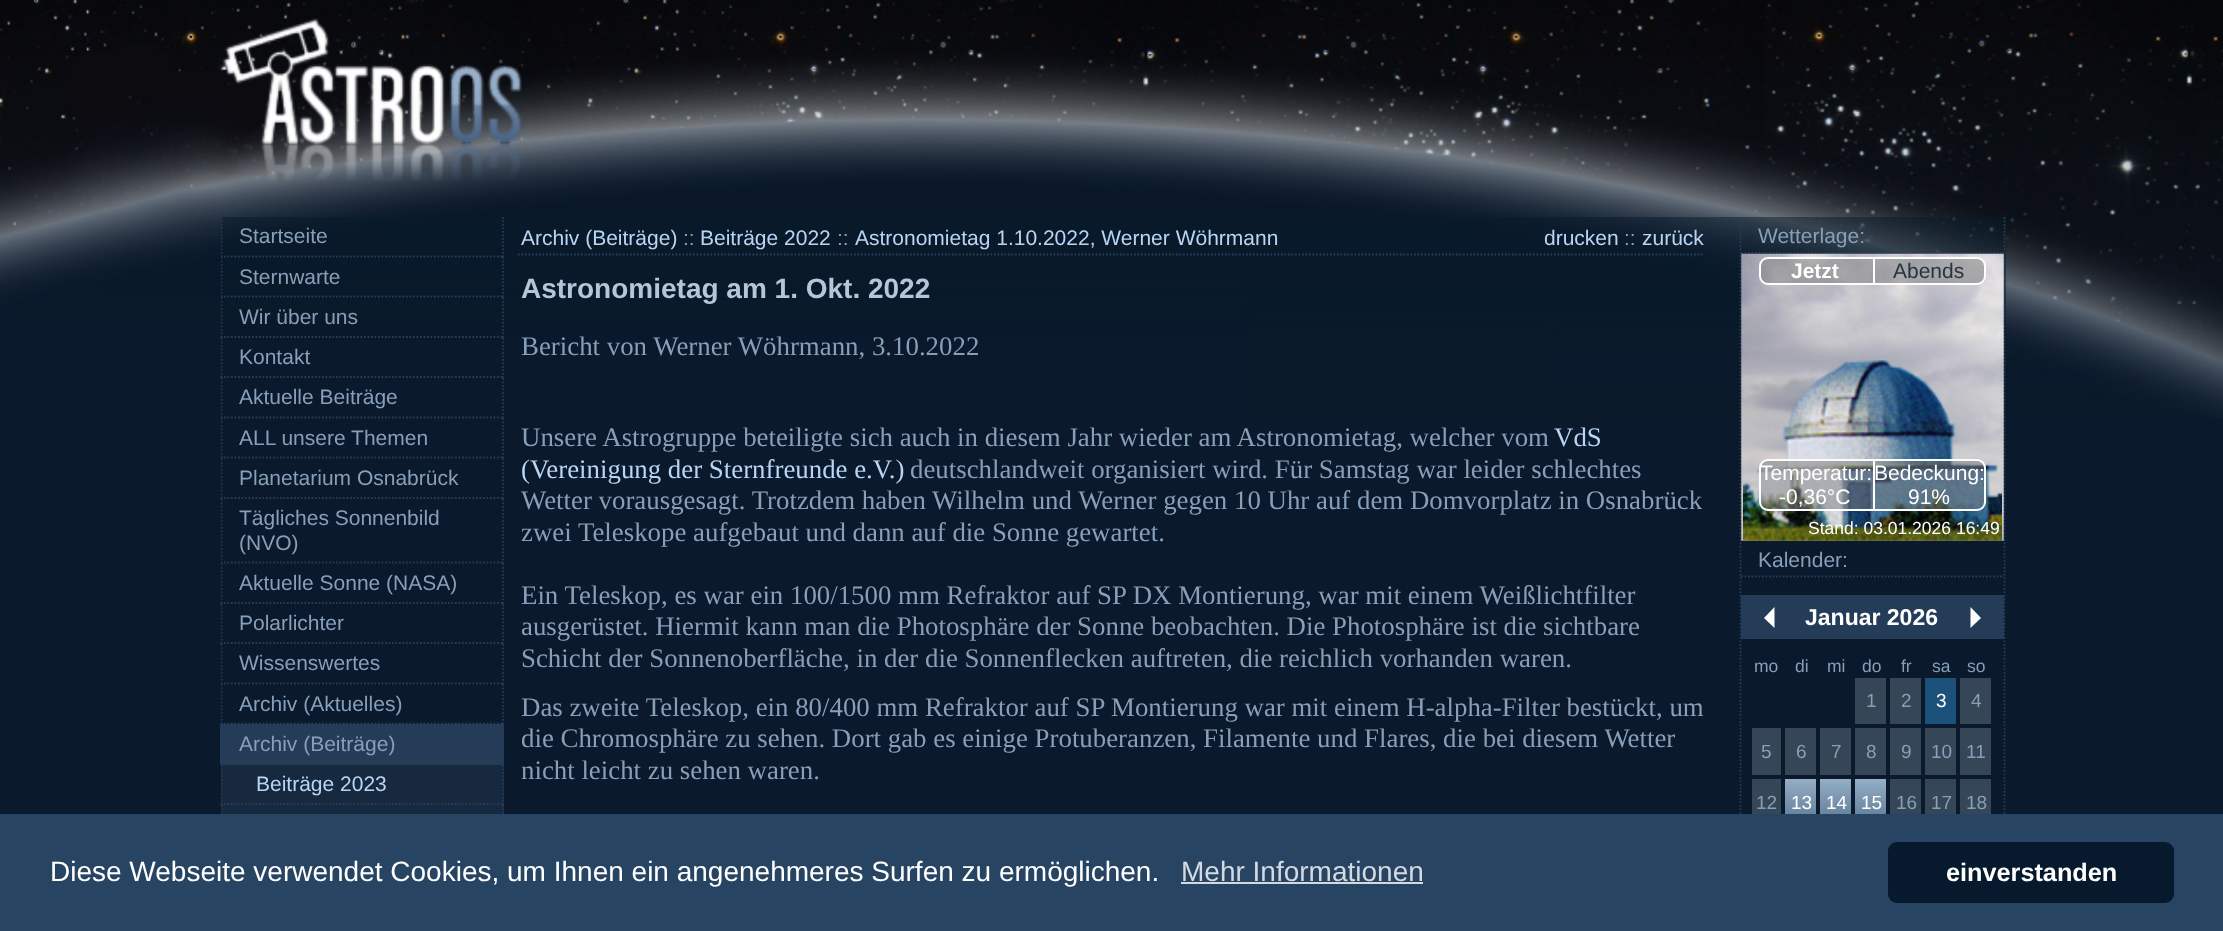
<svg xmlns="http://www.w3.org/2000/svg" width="2223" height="931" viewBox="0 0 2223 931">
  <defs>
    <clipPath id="clip1"><rect x="221" y="18" width="1785" height="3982"/></clipPath>
    <linearGradient id="g1" gradientUnits="userSpaceOnUse" x1="1801" y1="779" x2="1801" y2="826"><stop offset="0" stop-color="rgb(149,174,198)"/><stop offset="1" stop-color="rgb(90,118,145)"/></linearGradient>
    <linearGradient id="g2" gradientUnits="userSpaceOnUse" x1="1836" y1="779" x2="1836" y2="826"><stop offset="0" stop-color="rgb(149,174,198)"/><stop offset="1" stop-color="rgb(90,118,145)"/></linearGradient>
    <linearGradient id="g3" gradientUnits="userSpaceOnUse" x1="1871" y1="779" x2="1871" y2="826"><stop offset="0" stop-color="rgb(149,174,198)"/><stop offset="1" stop-color="rgb(90,118,145)"/></linearGradient>
  </defs>
  <rect width="100%" height="100%" fill="rgb(10,25,43)"/>
  <image x="0" y="0" width="2223" height="418" href="pic1.png"/>
  <image x="222" y="18" width="300" height="163" href="pic2.png"/>
  <rect x="221" y="217" width="1785" height="123" fill="rgba(8,26,41,0.5)"/>
  <path d="M503 217V257" fill="none" stroke="rgb(36,60,88)" stroke-width="1.8" stroke-dasharray="1.75 1.75"/>
  <g clip-path="url(#clip1)">
    <path d="M220.5 256.5H504" fill="none" stroke="rgb(36,60,88)" stroke-width="1.8" stroke-dasharray="1.75 1.75"/>
    <path d="M221.5 217V257" fill="none" stroke="rgb(36,60,88)" stroke-width="1.8" stroke-dasharray="1.75 1.75"/>
  </g>
  <text x="239" y="243" font-family="Liberation Sans" font-size="21" fill="rgb(136,159,185)">Startseite</text>
  <path d="M503 257V297.5" fill="none" stroke="rgb(36,60,88)" stroke-width="1.8" stroke-dasharray="1.75 1.75"/>
  <g clip-path="url(#clip1)">
    <path d="M220.5 296.5H504" fill="none" stroke="rgb(36,60,88)" stroke-width="1.8" stroke-dasharray="1.75 1.75"/>
    <path d="M221.5 257V297.5" fill="none" stroke="rgb(36,60,88)" stroke-width="1.8" stroke-dasharray="1.75 1.75"/>
  </g>
  <text x="239" y="284" font-family="Liberation Sans" font-size="21" fill="rgb(136,159,185)">Sternwarte</text>
  <path d="M503 297.5V338" fill="none" stroke="rgb(36,60,88)" stroke-width="1.8" stroke-dasharray="1.75 1.75"/>
  <path d="M220.5 337H504" fill="none" stroke="rgb(36,60,88)" stroke-width="1.8" stroke-dasharray="1.75 1.75"/>
  <g clip-path="url(#clip1)">
    <path d="M221.5 297.5V338" fill="none" stroke="rgb(36,60,88)" stroke-width="1.8" stroke-dasharray="1.75 1.75"/>
  </g>
  <text x="239" y="324" font-family="Liberation Sans" font-size="21" fill="rgb(136,159,185)">Wir über uns</text>
  <path d="M503 338V378" fill="none" stroke="rgb(36,60,88)" stroke-width="1.8" stroke-dasharray="1.75 1.75"/>
  <path d="M220.5 377H504" fill="none" stroke="rgb(36,60,88)" stroke-width="1.8" stroke-dasharray="1.75 1.75"/>
  <g clip-path="url(#clip1)">
    <path d="M221.5 338V378" fill="none" stroke="rgb(36,60,88)" stroke-width="1.8" stroke-dasharray="1.75 1.75"/>
  </g>
  <text x="239" y="364" font-family="Liberation Sans" font-size="21" fill="rgb(136,159,185)">Kontakt</text>
  <path d="M503 378V418" fill="none" stroke="rgb(36,60,88)" stroke-width="1.8" stroke-dasharray="1.75 1.75"/>
  <g clip-path="url(#clip1)">
    <path d="M220.5 417.5H504" fill="none" stroke="rgb(36,60,88)" stroke-width="1.8" stroke-dasharray="1.75 1.75"/>
    <path d="M221.5 378V418" fill="none" stroke="rgb(36,60,88)" stroke-width="1.8" stroke-dasharray="1.75 1.75"/>
  </g>
  <text x="239" y="404" font-family="Liberation Sans" font-size="21" fill="rgb(136,159,185)">Aktuelle Beiträge</text>
  <path d="M503 418V458.5" fill="none" stroke="rgb(36,60,88)" stroke-width="1.8" stroke-dasharray="1.75 1.75"/>
  <g clip-path="url(#clip1)">
    <path d="M220.5 457.5H504" fill="none" stroke="rgb(36,60,88)" stroke-width="1.8" stroke-dasharray="1.75 1.75"/>
    <path d="M221.5 418V458.5" fill="none" stroke="rgb(36,60,88)" stroke-width="1.8" stroke-dasharray="1.75 1.75"/>
  </g>
  <text x="239" y="445" font-family="Liberation Sans" font-size="21" fill="rgb(136,159,185)">ALL unsere Themen</text>
  <path d="M503 458.5V499" fill="none" stroke="rgb(36,60,88)" stroke-width="1.8" stroke-dasharray="1.75 1.75"/>
  <path d="M220.5 498H504" fill="none" stroke="rgb(36,60,88)" stroke-width="1.8" stroke-dasharray="1.75 1.75"/>
  <g clip-path="url(#clip1)">
    <path d="M221.5 458.5V499" fill="none" stroke="rgb(36,60,88)" stroke-width="1.8" stroke-dasharray="1.75 1.75"/>
  </g>
  <text x="239" y="485" font-family="Liberation Sans" font-size="21" fill="rgb(136,159,185)">Planetarium Osnabrück</text>
  <path d="M503 499V563.5" fill="none" stroke="rgb(36,60,88)" stroke-width="1.8" stroke-dasharray="1.75 1.75"/>
  <g clip-path="url(#clip1)">
    <path d="M220.5 562.5H504" fill="none" stroke="rgb(36,60,88)" stroke-width="1.8" stroke-dasharray="1.75 1.75"/>
    <path d="M221.5 499V563.5" fill="none" stroke="rgb(36,60,88)" stroke-width="1.8" stroke-dasharray="1.75 1.75"/>
  </g>
  <g font-family="Liberation Sans" font-size="21" fill="rgb(136,159,185)">
    <text>
      <tspan x="239" y="525">Tägliches Sonnenbild</tspan>
      <tspan x="239" y="550">(NVO)</tspan>
    </text>
  </g>
  <path d="M503 563.5V604" fill="none" stroke="rgb(36,60,88)" stroke-width="1.8" stroke-dasharray="1.75 1.75"/>
  <path d="M220.5 603H504" fill="none" stroke="rgb(36,60,88)" stroke-width="1.8" stroke-dasharray="1.75 1.75"/>
  <g clip-path="url(#clip1)">
    <path d="M221.5 563.5V604" fill="none" stroke="rgb(36,60,88)" stroke-width="1.8" stroke-dasharray="1.75 1.75"/>
  </g>
  <text x="239" y="590" font-family="Liberation Sans" font-size="21" fill="rgb(136,159,185)">Aktuelle Sonne (NASA)</text>
  <path d="M503 604V644" fill="none" stroke="rgb(36,60,88)" stroke-width="1.8" stroke-dasharray="1.75 1.75"/>
  <path d="M220.5 643H504" fill="none" stroke="rgb(36,60,88)" stroke-width="1.8" stroke-dasharray="1.75 1.75"/>
  <g clip-path="url(#clip1)">
    <path d="M221.5 604V644" fill="none" stroke="rgb(36,60,88)" stroke-width="1.8" stroke-dasharray="1.75 1.75"/>
  </g>
  <text x="239" y="630" font-family="Liberation Sans" font-size="21" fill="rgb(136,159,185)">Polarlichter</text>
  <path d="M503 644V684" fill="none" stroke="rgb(36,60,88)" stroke-width="1.8" stroke-dasharray="1.75 1.75"/>
  <g clip-path="url(#clip1)">
    <path d="M220.5 683.5H504" fill="none" stroke="rgb(36,60,88)" stroke-width="1.8" stroke-dasharray="1.75 1.75"/>
    <path d="M221.5 644V684" fill="none" stroke="rgb(36,60,88)" stroke-width="1.8" stroke-dasharray="1.75 1.75"/>
  </g>
  <text x="239" y="670" font-family="Liberation Sans" font-size="21" fill="rgb(136,159,185)">Wissenswertes</text>
  <path d="M503 684V724.5" fill="none" stroke="rgb(36,60,88)" stroke-width="1.8" stroke-dasharray="1.75 1.75"/>
  <path d="M220.5 723.5H504" fill="none" stroke="rgb(36,60,88)" stroke-width="1.8" stroke-dasharray="1.75 1.75"/>
  <g clip-path="url(#clip1)">
    <path d="M221.5 684V724.5" fill="none" stroke="rgb(36,60,88)" stroke-width="1.8" stroke-dasharray="1.75 1.75"/>
  </g>
  <text x="239" y="711" font-family="Liberation Sans" font-size="21" fill="rgb(136,159,185)">Archiv (Aktuelles)</text>
  <rect x="220" y="724" width="284" height="41" fill="rgb(36,60,88)"/>
  <text x="239" y="751" font-family="Liberation Sans" font-size="21" fill="rgb(136,159,185)">Archiv (Beiträge)</text>
  <rect x="221" y="765" width="283" height="49" fill="rgb(22,41,62)"/>
  <path d="M503 765V805" fill="none" stroke="rgb(36,60,88)" stroke-width="1.8" stroke-dasharray="1.75 1.75"/>
  <path d="M220.5 804H504" fill="none" stroke="rgb(36,60,88)" stroke-width="1.8" stroke-dasharray="1.75 1.75"/>
  <g clip-path="url(#clip1)">
    <path d="M221.5 765V805" fill="none" stroke="rgb(36,60,88)" stroke-width="1.8" stroke-dasharray="1.75 1.75"/>
  </g>
  <text x="256" y="791" font-family="Liberation Sans" font-size="21" fill="rgb(185,213,245)">Beiträge 2023</text>
  <path d="M503 805V845" fill="none" stroke="rgb(36,60,88)" stroke-width="1.8" stroke-dasharray="1.75 1.75"/>
  <g clip-path="url(#clip1)">
    <path d="M221.5 805V845" fill="none" stroke="rgb(36,60,88)" stroke-width="1.8" stroke-dasharray="1.75 1.75"/>
  </g>
  <path d="M518 254.5H1704.5" fill="none" stroke="rgb(36,60,88)" stroke-width="1.8" stroke-dasharray="1.75 1.75"/>
  <text x="521" y="245" font-family="Liberation Sans" font-size="21" fill="rgb(185,213,245)">Archiv (Beiträge)</text>
  <text x="683" y="245" font-family="Liberation Sans" font-size="21" fill="rgb(136,159,185)">::</text>
  <text x="700" y="245" font-family="Liberation Sans" font-size="21" fill="rgb(185,213,245)">Beiträge 2022</text>
  <text x="837" y="245" font-family="Liberation Sans" font-size="21" fill="rgb(136,159,185)">::</text>
  <g font-family="Liberation Sans" font-size="21" fill="rgb(185,213,245)">
    <text x="855" y="245">Astronomietag 1.10.2022, Werner Wöhrmann</text>
    <text x="1544" y="245">drucken</text>
  </g>
  <text x="1624" y="245" font-family="Liberation Sans" font-size="21" fill="rgb(136,159,185)">::</text>
  <text x="1642" y="245" font-family="Liberation Sans" font-size="21" fill="rgb(185,213,245)">zurück</text>
  <text x="521" y="298" font-family="Liberation Sans" font-size="28" font-weight="bold" fill="rgb(181,198,217)">Astronomietag am 1. Okt. 2022</text>
  <g font-family="Liberation Serif" font-size="26.85" fill="rgb(136,159,185)">
    <text x="521" y="355">Bericht von Werner Wöhrmann, 3.10.2022</text>
    <text x="521" y="446">Unsere Astrogruppe beteiligte sich auch in diesem Jahr wieder am Astronomietag, welcher vom</text>
  </g>
  <g font-family="Liberation Serif" font-size="26.85" fill="rgb(185,213,245)">
    <text x="1554" y="446">VdS</text>
    <text x="521" y="478">(Vereinigung der Sternfreunde e.V.)</text>
  </g>
  <g font-family="Liberation Serif" font-size="26.85" fill="rgb(136,159,185)">
    <text x="910" y="478">deutschlandweit organisiert wird. Für Samstag war leider schlechtes</text>
    <text>
      <tspan x="521" y="509">Wetter vorausgesagt. Trotzdem haben Wilhelm und Werner gegen 10 Uhr auf dem Domvorplatz in Osnabrück</tspan>
      <tspan x="521" y="541">zwei Teleskope aufgebaut und dann auf die Sonne gewartet.</tspan>
    </text>
    <text>
      <tspan x="521" y="604">Ein Teleskop, es war ein 100/1500 mm Refraktor auf SP DX Montierung, war mit einem Weißlichtfilter</tspan>
      <tspan x="521" y="635">ausgerüstet. Hiermit kann man die Photosphäre der Sonne beobachten. Die Photosphäre ist die sichtbare</tspan>
      <tspan x="521" y="667">Schicht der Sonnenoberfläche, in der die Sonnenflecken auftreten, die reichlich vorhanden waren.</tspan>
      <tspan x="521" y="716">Das zweite Teleskop, ein 80/400 mm Refraktor auf SP Montierung war mit einem H-alpha-Filter bestückt, um</tspan>
      <tspan x="521" y="747">die Chromosphäre zu sehen. Dort gab es einige Protuberanzen, Filamente und Flares, die bei diesem Wetter</tspan>
      <tspan x="521" y="779">nicht leicht zu sehen waren.</tspan>
    </text>
  </g>
  <path d="M2004.5 217V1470" fill="none" stroke="rgb(36,60,88)" stroke-width="1.8" stroke-dasharray="1.75 1.75"/>
  <path d="M1740.5 217V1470" fill="none" stroke="rgb(36,60,88)" stroke-width="1.8" stroke-dasharray="1.75 1.75"/>
  <path d="M1741 253H2004" fill="none" stroke="rgb(36,60,88)" stroke-width="1.8" stroke-dasharray="1.75 1.75"/>
  <text x="1758" y="243" font-family="Liberation Sans" font-size="21" fill="rgb(136,159,185)">Wetterlage:</text>
  <image x="1741" y="253" width="263" height="288" href="pic3.png"/>
  <rect x="1760" y="258" width="225" height="26" rx="8" fill="rgba(125,125,125,0.5)" stroke="rgb(255,255,255)" stroke-width="2"/>
  <text x="1791" y="278" font-family="Liberation Sans" font-size="21" font-weight="bold" fill="rgb(255,255,255)">Jetzt</text>
  <rect x="1873" y="259" width="2" height="25" fill="rgb(255,255,255)"/>
  <text x="1893" y="278" font-family="Liberation Sans" font-size="21" fill="rgb(38,52,67)">Abends</text>
  <image x="1743" y="360" width="259" height="181" href="pic4.png"/>
  <rect x="1760" y="460" width="225" height="50" rx="8" fill="rgba(125,125,125,0.5)" stroke="rgb(255,255,255)" stroke-width="2"/>
  <g font-family="Liberation Sans" font-size="21" fill="rgb(255,255,255)">
    <text x="1760" y="480">Temperatur:</text>
    <text x="1779" y="504">-0,36°C</text>
  </g>
  <rect x="1873" y="460" width="2" height="49" fill="rgb(255,255,255)"/>
  <g font-family="Liberation Sans" font-size="21" fill="rgb(255,255,255)">
    <text x="1874" y="480">Bedeckung:</text>
    <text x="1908" y="504">91%</text>
  </g>
  <text x="1808" y="534" font-family="Liberation Sans" font-size="17.5" fill="rgb(255,255,255)">Stand: 03.01.2026 16:49</text>
  <path d="M1741 576.5H2004" fill="none" stroke="rgb(36,60,88)" stroke-width="1.8" stroke-dasharray="1.75 1.75"/>
  <text x="1758" y="567" font-family="Liberation Sans" font-size="21" fill="rgb(136,159,185)">Kalender:</text>
  <rect x="1741" y="595" width="263" height="44" fill="rgb(36,60,88)"/>
  <path d="M1774.5 607V628L1764 618Z" fill="rgb(255,255,255)"/>
  <path d="M1970.5 628V607L1981 618Z" fill="rgb(255,255,255)"/>
  <text x="1805" y="625" font-family="Liberation Sans" font-size="23" font-weight="bold" fill="rgb(255,255,255)">Januar 2026</text>
  <g font-family="Liberation Sans" font-size="17.5" fill="rgb(136,159,185)">
    <text x="1754" y="672">mo</text>
    <text x="1795" y="672">di</text>
    <text x="1827" y="672">mi</text>
    <text x="1862" y="672">do</text>
    <text x="1901" y="672">fr</text>
    <text x="1932" y="672">sa</text>
    <text x="1967" y="672">so</text>
  </g>
  <rect x="1855" y="678" width="31" height="46" fill="rgb(53,71,86)"/>
  <text x="1866" y="707" font-family="Liberation Sans" font-size="19" fill="rgb(136,159,185)">1</text>
  <rect x="1890" y="678" width="31" height="46" fill="rgb(53,71,86)"/>
  <text x="1901" y="707" font-family="Liberation Sans" font-size="19" fill="rgb(136,159,185)">2</text>
  <rect x="1925" y="678" width="31" height="46" fill="rgb(28,81,124)"/>
  <text x="1936" y="707" font-family="Liberation Sans" font-size="19" fill="rgb(255,255,255)">3</text>
  <rect x="1960" y="678" width="31" height="46" fill="rgb(53,71,86)"/>
  <text x="1971" y="707" font-family="Liberation Sans" font-size="19" fill="rgb(136,159,185)">4</text>
  <rect x="1752" y="728" width="29" height="47" fill="rgb(53,71,86)"/>
  <text x="1761" y="758" font-family="Liberation Sans" font-size="19" fill="rgb(136,159,185)">5</text>
  <rect x="1785" y="728" width="31" height="47" fill="rgb(53,71,86)"/>
  <text x="1796" y="758" font-family="Liberation Sans" font-size="19" fill="rgb(136,159,185)">6</text>
  <rect x="1820" y="728" width="31" height="47" fill="rgb(53,71,86)"/>
  <text x="1831" y="758" font-family="Liberation Sans" font-size="19" fill="rgb(136,159,185)">7</text>
  <rect x="1855" y="728" width="31" height="47" fill="rgb(53,71,86)"/>
  <text x="1866" y="758" font-family="Liberation Sans" font-size="19" fill="rgb(136,159,185)">8</text>
  <rect x="1890" y="728" width="31" height="47" fill="rgb(53,71,86)"/>
  <text x="1901" y="758" font-family="Liberation Sans" font-size="19" fill="rgb(136,159,185)">9</text>
  <rect x="1925" y="728" width="31" height="47" fill="rgb(53,71,86)"/>
  <text x="1931" y="758" font-family="Liberation Sans" font-size="19" fill="rgb(136,159,185)">10</text>
  <rect x="1960" y="728" width="31" height="47" fill="rgb(53,71,86)"/>
  <text x="1966" y="758" font-family="Liberation Sans" font-size="19" fill="rgb(136,159,185)">11</text>
  <rect x="1752" y="779" width="29" height="35" fill="rgb(53,71,86)"/>
  <text x="1756" y="809" font-family="Liberation Sans" font-size="19" fill="rgb(136,159,185)">12</text>
  <rect x="1785" y="779" width="31" height="35" fill="url(#g1)"/>
  <text x="1791" y="809" font-family="Liberation Sans" font-size="19" fill="rgb(255,255,255)">13</text>
  <rect x="1820" y="779" width="31" height="35" fill="url(#g2)"/>
  <text x="1826" y="809" font-family="Liberation Sans" font-size="19" fill="rgb(255,255,255)">14</text>
  <rect x="1855" y="779" width="31" height="35" fill="url(#g3)"/>
  <text x="1861" y="809" font-family="Liberation Sans" font-size="19" fill="rgb(255,255,255)">15</text>
  <rect x="1890" y="779" width="31" height="35" fill="rgb(53,71,86)"/>
  <text x="1896" y="809" font-family="Liberation Sans" font-size="19" fill="rgb(136,159,185)">16</text>
  <rect x="1925" y="779" width="31" height="35" fill="rgb(53,71,86)"/>
  <text x="1931" y="809" font-family="Liberation Sans" font-size="19" fill="rgb(136,159,185)">17</text>
  <rect x="1960" y="779" width="31" height="35" fill="rgb(53,71,86)"/>
  <text x="1966" y="809" font-family="Liberation Sans" font-size="19" fill="rgb(136,159,185)">18</text>
  <rect x="0" y="814" width="2223" height="117" fill="rgb(39,68,99)"/>
  <text x="50" y="881" font-family="Liberation Sans" font-size="28" fill="rgb(255,255,255)">Diese Webseite verwendet Cookies, um Ihnen ein angenehmeres Surfen zu ermöglichen.</text>
  <text x="1181" y="881" font-family="Liberation Sans" font-size="28" fill="rgb(212,218,224)">Mehr Informationen</text>
  <rect x="1181" y="882" width="242" height="2" fill="rgb(212,218,224)"/>
  <rect x="1888" y="842" width="286" height="61" rx="9" fill="rgb(6,25,45)"/>
  <text x="1946" y="881" font-family="Liberation Sans" font-size="25.25" font-weight="bold" fill="rgb(255,255,255)">einverstanden</text>
</svg>
